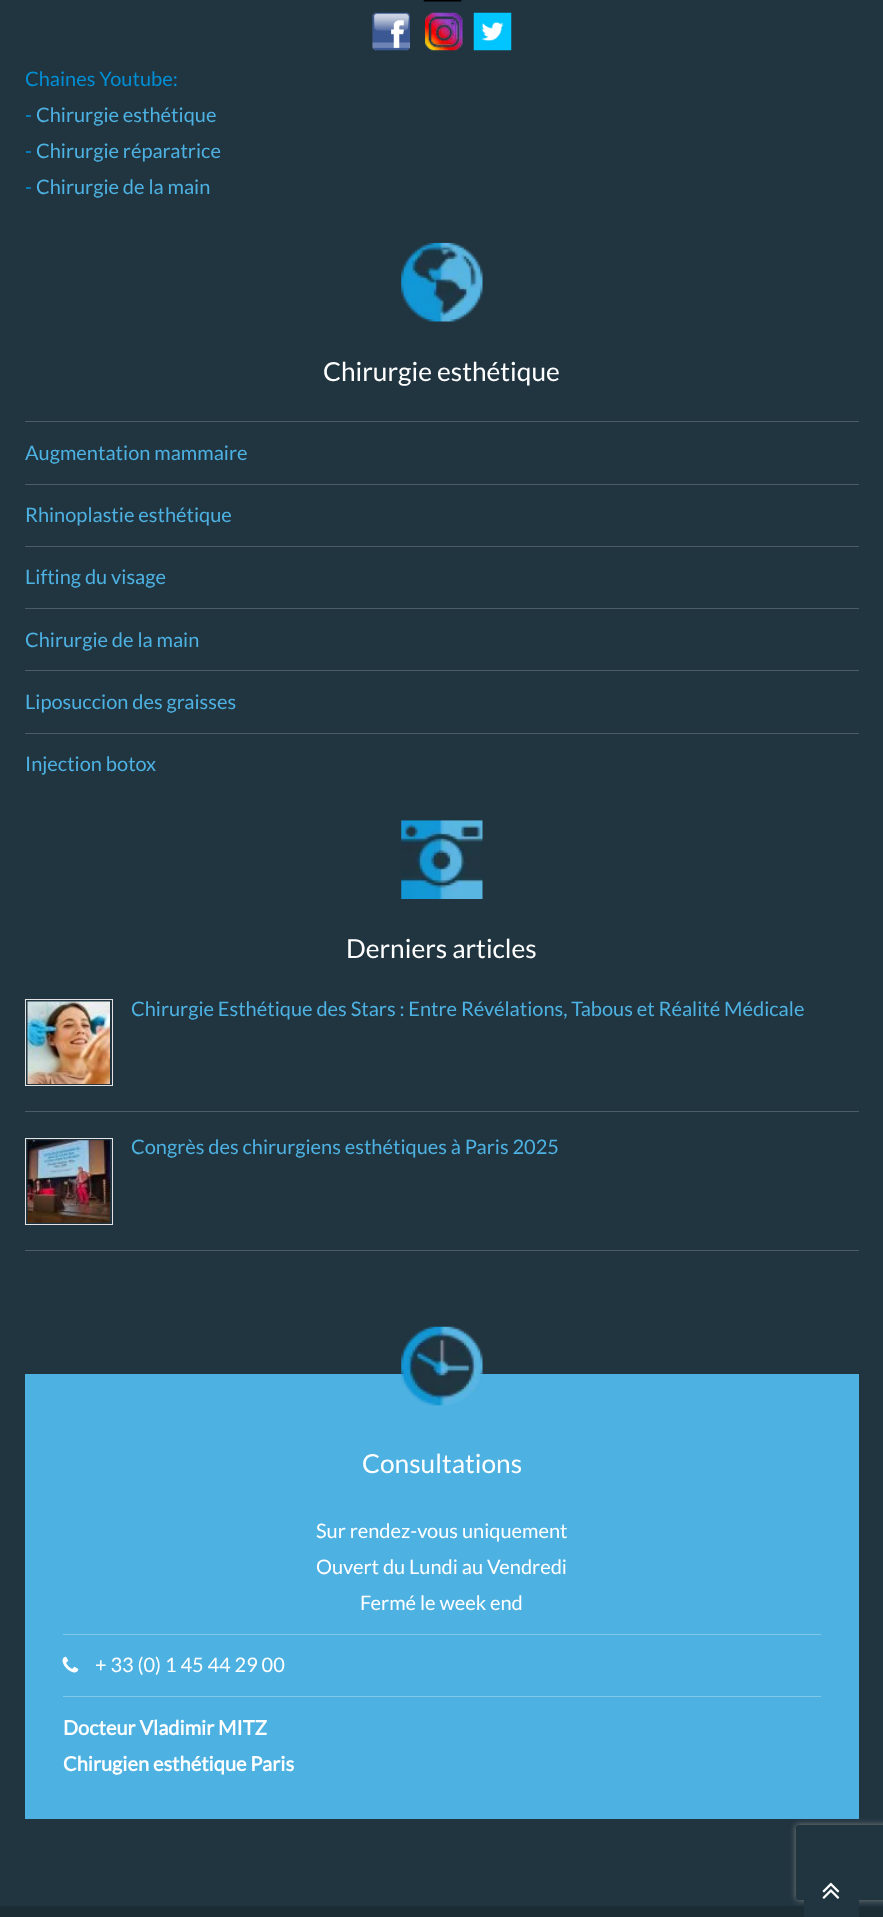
<svg xmlns="http://www.w3.org/2000/svg" width="883" height="1917" viewBox="0 0 883 1917">
  <defs>
    <clipPath id="clip1"><path d="M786 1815H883V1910H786ZM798.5 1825H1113.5C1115 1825 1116 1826 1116 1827.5V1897.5C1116 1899 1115 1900 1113.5 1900H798.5C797 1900 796 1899 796 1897.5V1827.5C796 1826 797 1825 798.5 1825Z" clip-rule="evenodd"/></clipPath>
  </defs>
  <rect width="100%" height="100%" fill="rgb(33,53,64)"/>
  <image x="423" y="0" width="39" height="2" href="pic1.png"/>
  <image x="372" y="12" width="38" height="39" href="pic2.png"/>
  <image x="425" y="12" width="38" height="39" href="pic3.png"/>
  <image x="473" y="12" width="39" height="39" href="pic4.png"/>
  <g font-family="Lato" font-size="20" fill="rgb(0,143,213)">
    <text>
      <tspan x="25" y="86">Chaines Youtube:</tspan>
      <tspan x="25" y="122">-</tspan>
    </text>
  </g>
  <text x="36" y="122" font-family="Lato" font-size="20" fill="rgb(77,177,226)">Chirurgie esthétique</text>
  <text x="25" y="158" font-family="Lato" font-size="20" fill="rgb(0,143,213)">-</text>
  <text x="36" y="158" font-family="Lato" font-size="20" fill="rgb(77,177,226)">Chirurgie réparatrice</text>
  <text x="25" y="194" font-family="Lato" font-size="20" fill="rgb(0,143,213)">-</text>
  <text x="36" y="194" font-family="Lato" font-size="20" fill="rgb(77,177,226)">Chirurgie de la main</text>
  <image x="401" y="242" width="82" height="80" href="pic5.png"/>
  <text x="323" y="381" font-family="Lato" font-size="26.25" fill="rgb(255,255,255)">Chirurgie esthétique</text>
  <rect x="25" y="421" width="834" height="1" fill="rgb(77,93,102)"/>
  <text x="25" y="460" font-family="Lato" font-size="20" fill="rgb(77,177,226)">Augmentation mammaire</text>
  <rect x="25" y="484" width="834" height="1" fill="rgb(77,93,102)"/>
  <text x="25" y="522" font-family="Lato" font-size="20" fill="rgb(77,177,226)">Rhinoplastie esthétique</text>
  <rect x="25" y="546" width="834" height="1" fill="rgb(77,93,102)"/>
  <text x="25" y="584" font-family="Lato" font-size="20" fill="rgb(77,177,226)">Lifting du visage</text>
  <rect x="25" y="608" width="834" height="1" fill="rgb(77,93,102)"/>
  <text x="25" y="647" font-family="Lato" font-size="20" fill="rgb(77,177,226)">Chirurgie de la main</text>
  <rect x="25" y="670" width="834" height="1" fill="rgb(77,93,102)"/>
  <text x="25" y="709" font-family="Lato" font-size="20" fill="rgb(77,177,226)">Liposuccion des graisses</text>
  <rect x="25" y="733" width="834" height="1" fill="rgb(77,93,102)"/>
  <text x="25" y="771" font-family="Lato" font-size="20" fill="rgb(77,177,226)">Injection botox</text>
  <image x="401" y="820" width="82" height="79" href="pic6.png"/>
  <text x="346" y="958" font-family="Lato" font-size="26.25" fill="rgb(255,255,255)">Derniers articles</text>
  <rect x="25" y="1111" width="834" height="1" fill="rgb(77,93,102)"/>
  <rect x="25.5" y="999.5" width="87" height="86" fill="none" stroke="rgb(228,228,228)"/>
  <image x="27" y="1001" width="83" height="83" href="pic7.png"/>
  <text x="131" y="1016" font-family="Lato" font-size="20" fill="rgb(77,177,226)">Chirurgie Esthétique des Stars : Entre Révélations, Tabous et Réalité Médicale</text>
  <rect x="25" y="1250" width="834" height="1" fill="rgb(77,93,102)"/>
  <rect x="25.5" y="1138.5" width="87" height="86" fill="none" stroke="rgb(228,228,228)"/>
  <image x="27" y="1140" width="83" height="83" href="pic8.png"/>
  <text x="131" y="1154" font-family="Lato" font-size="20" fill="rgb(77,177,226)">Congrès des chirurgiens esthétiques à Paris 2025</text>
  <rect x="25" y="1374" width="834" height="445" fill="rgb(77,177,226)"/>
  <image x="401" y="1326" width="82" height="80" href="pic9.png"/>
  <text x="362" y="1473" font-family="Lato" font-size="26.25" fill="rgb(255,255,255)">Consultations</text>
  <g font-family="Lato" font-size="20" fill="rgb(255,255,255)">
    <text>
      <tspan x="316" y="1538">Sur rendez-vous uniquement</tspan>
      <tspan x="316" y="1574">Ouvert du Lundi au Vendredi</tspan>
    </text>
    <text x="360" y="1610">Fermé le week end</text>
  </g>
  <rect x="63" y="1634" width="758" height="1" fill="rgb(130,200,235)"/>
  <image x="62" y="1656" width="17" height="17" href="pic10.png"/>
  <text x="95" y="1672" font-family="Lato" font-size="20" fill="rgb(255,255,255)">+ 33 (0) 1 45 44 29 00</text>
  <rect x="63" y="1696" width="758" height="1" fill="rgb(130,200,235)"/>
  <g font-family="Lato" font-size="20" font-weight="bold" fill="rgb(255,255,255)">
    <text>
      <tspan x="63" y="1735">Docteur Vladimir MITZ</tspan>
      <tspan x="63" y="1771">Chirugien esthétique Paris</tspan>
    </text>
  </g>
  <rect x="0" y="1906" width="883" height="11" fill="rgb(28,45,54)"/>
  <g clip-path="url(#clip1)">
    <rect x="796" y="1825" width="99" height="75" rx="2.5" fill="rgb(128,128,128)" filter="blur(3px)"/>
  </g>
  <rect x="804" y="1900" width="55" height="17" fill="rgb(33,53,64)"/>
  <image x="822" y="1882" width="18" height="17" href="pic11.png"/>
</svg>
